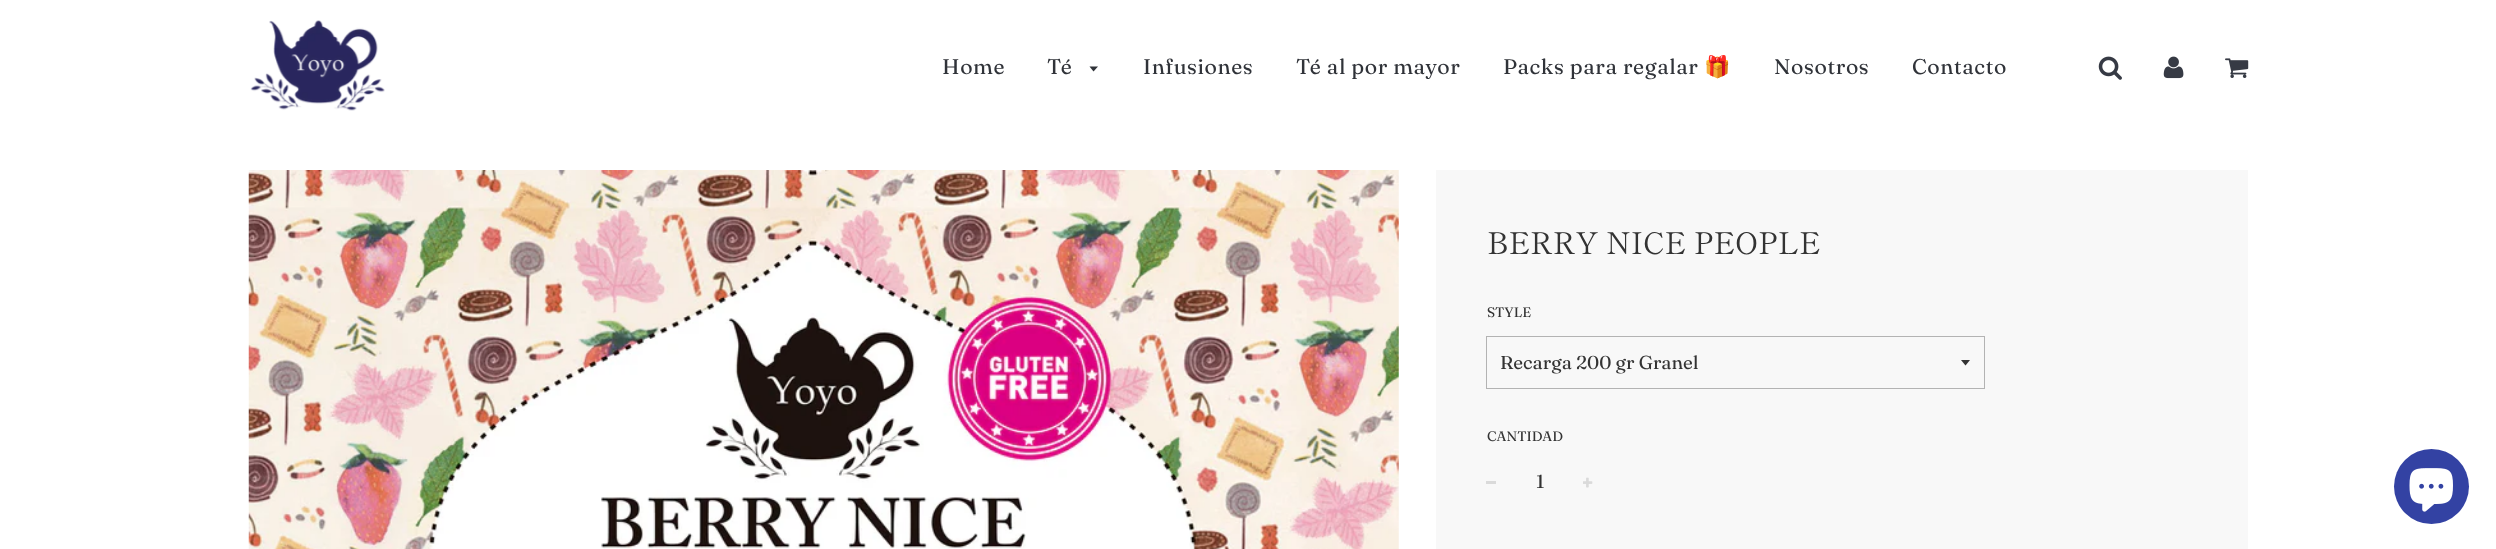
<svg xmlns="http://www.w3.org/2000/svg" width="2496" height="549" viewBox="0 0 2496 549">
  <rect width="100%" height="100%" fill="rgb(255,255,255)"/>
  <image x="250" y="20" width="135" height="91" href="pic1.png"/>
  <g font-family="Fraunces" font-size="21.25" letter-spacing="0.6" fill="rgb(48,51,57)">
    <text x="942" y="74">Home</text>
    <text x="1047" y="74">Té</text>
  </g>
  <path d="M1089.5 66.5L1093.5 71.5L1098 66.5Z" fill="rgb(48,51,57)"/>
  <g font-family="Fraunces" font-size="21.25" letter-spacing="0.6" fill="rgb(48,51,57)">
    <text x="1143" y="74">Infusiones</text>
    <text x="1296" y="74">Té al por mayor</text>
    <text x="1503" y="74">Packs para regalar</text>
  </g>
  <text x="1704" y="74" font-family="Noto Color Emoji" font-size="21.25" letter-spacing="0.6" fill="rgb(48,51,57)">🎁</text>
  <g font-family="Fraunces" font-size="21.25" letter-spacing="0.6" fill="rgb(48,51,57)">
    <text x="1774" y="74">Nosotros</text>
    <text x="1912" y="74">Contacto</text>
  </g>
  <image x="2098" y="56" width="24" height="24" href="pic2.png"/>
  <image x="2163" y="56" width="21" height="23" href="pic3.png"/>
  <image x="2225" y="58" width="24" height="20" href="pic4.png"/>
  <image x="248" y="170" width="1151" height="379" href="pic5.png"/>
  <rect x="1436" y="170" width="812" height="379" fill="rgb(248,248,248)"/>
  <text x="1487" y="254" font-family="Shippori Mincho" font-size="30" fill="rgb(51,51,51)">BERRY NICE PEOPLE</text>
  <text x="1487" y="317" font-family="'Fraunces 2'" font-size="13.75" fill="rgb(51,51,51)">STYLE</text>
  <path d="M1961 360L1965.5 365.5L1970 360Z" fill="rgb(51,51,51)"/>
  <rect x="1486.5" y="336.5" width="498" height="52" fill="none" stroke="rgb(179,179,179)"/>
  <text x="1500" y="369" font-family="'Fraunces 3'" font-size="18.75" fill="rgb(51,51,51)">Recarga 200 gr Granel</text>
  <text x="1487" y="441" font-family="'Fraunces 2'" font-size="13.75" fill="rgb(51,51,51)">CANTIDAD</text>
  <rect x="1486" y="481" width="10" height="3" fill="rgb(218,218,218)"/>
  <text x="1536" y="488" font-family="'Fraunces 3'" font-size="18.75" fill="rgb(51,51,51)">1</text>
  <image x="1583" y="477" width="10" height="11" href="pic6.png"/>
  <circle cx="2431.5" cy="486.5" r="37.5" fill="rgb(51,66,163)"/>
  <image x="2409" y="468" width="44" height="44" href="pic7.png"/>
</svg>
